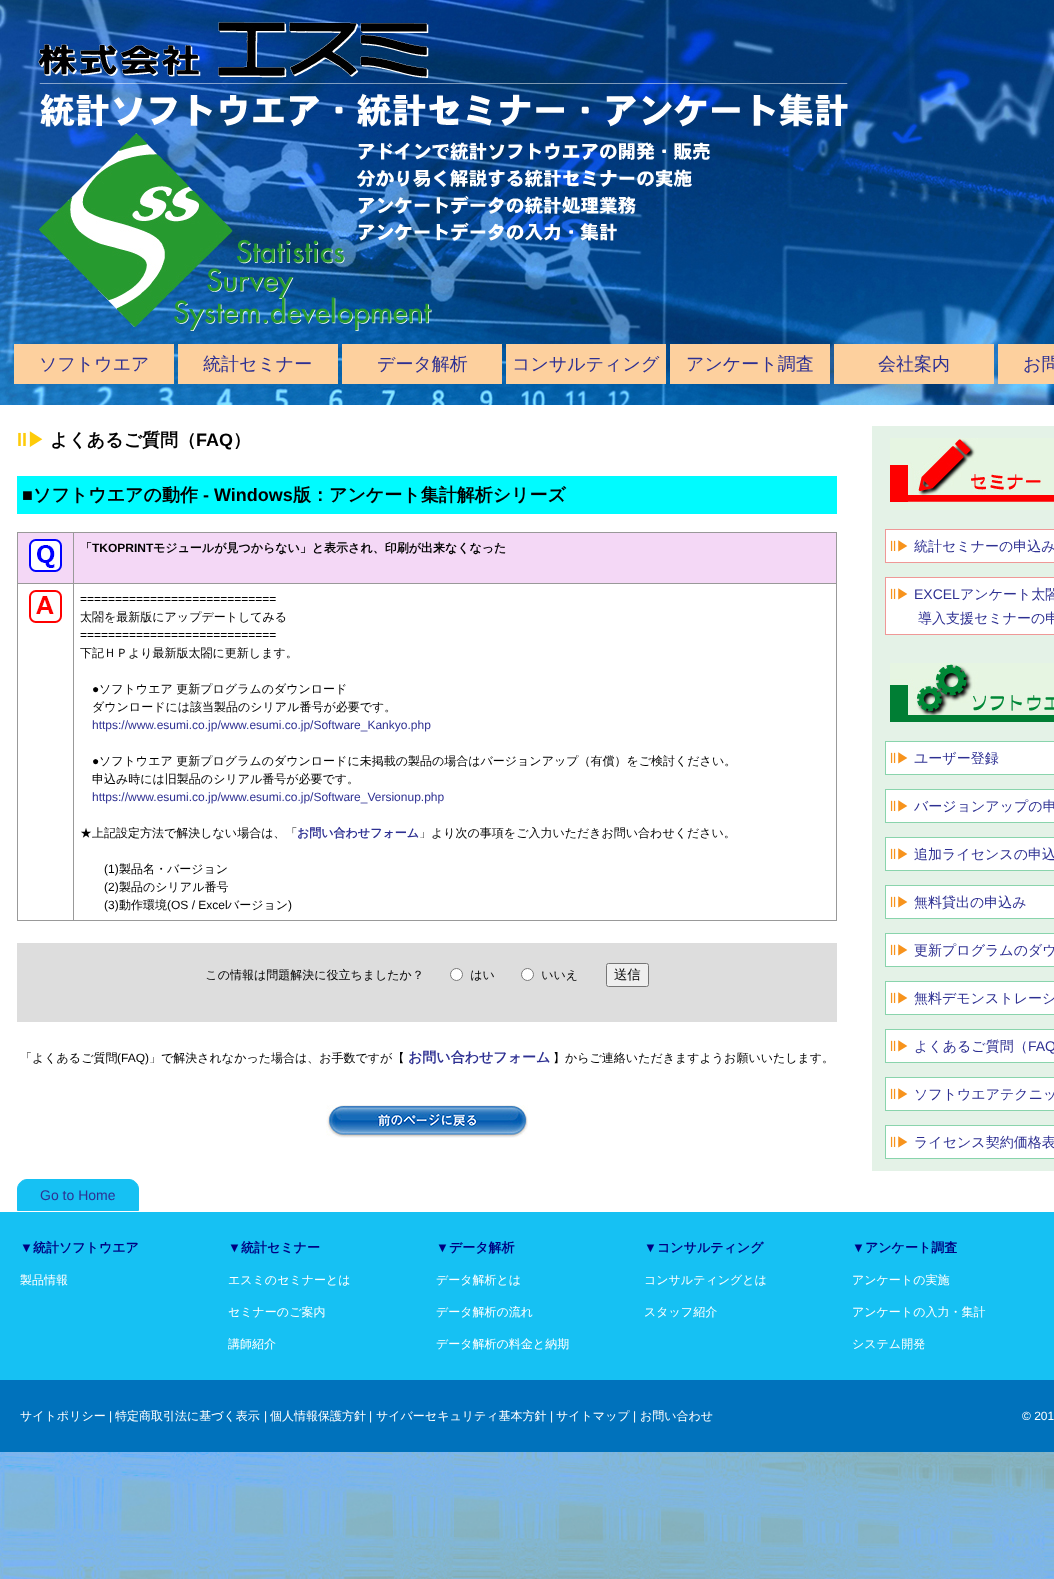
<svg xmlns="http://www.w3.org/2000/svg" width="1054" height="1579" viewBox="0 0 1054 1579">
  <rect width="100%" height="100%" fill="rgb(255,255,255)"/>
  <image x="0" y="1452" width="1054" height="127" href="pic1.png"/>
  <image x="0" y="0" width="1054" height="405" href="pic2.png"/>
  <rect x="14" y="344" width="160" height="40" fill="rgb(253,208,158)"/>
  <text x="39" y="370" font-family="WenQuanYi Zen Hei" font-size="18" font-weight="500" fill="rgb(46,48,146)">ソフトウエア</text>
  <rect x="178" y="344" width="160" height="40" fill="rgb(253,208,158)"/>
  <text x="203" y="370" font-family="WenQuanYi Zen Hei" font-size="18" font-weight="500" fill="rgb(46,48,146)">統計セミナー</text>
  <rect x="342" y="344" width="160" height="40" fill="rgb(253,208,158)"/>
  <text x="377" y="370" font-family="WenQuanYi Zen Hei" font-size="18" font-weight="500" fill="rgb(46,48,146)">データ解析</text>
  <rect x="506" y="344" width="160" height="40" fill="rgb(253,208,158)"/>
  <text x="512" y="370" font-family="WenQuanYi Zen Hei" font-size="18" font-weight="500" fill="rgb(46,48,146)">コンサルティング</text>
  <rect x="670" y="344" width="160" height="40" fill="rgb(253,208,158)"/>
  <text x="686" y="370" font-family="WenQuanYi Zen Hei" font-size="18" font-weight="500" fill="rgb(46,48,146)">アンケート調査</text>
  <rect x="834" y="344" width="160" height="40" fill="rgb(253,208,158)"/>
  <text x="878" y="370" font-family="WenQuanYi Zen Hei" font-size="18" font-weight="500" fill="rgb(46,48,146)">会社案内</text>
  <rect x="998" y="344" width="56" height="40" fill="rgb(253,208,158)"/>
  <text x="1023" y="370" font-family="WenQuanYi Zen Hei" font-size="18" font-weight="500" fill="rgb(46,48,146)">お問</text>
  <text x="17" y="446" font-family="Liberation Sans" font-size="18" font-weight="bold" fill="rgb(254,203,9)">ll</text>
  <text x="27" y="446" font-family="WenQuanYi Zen Hei" font-size="18" font-weight="bold" fill="rgb(254,203,9)">▶</text>
  <text x="50" y="446" font-family="WenQuanYi Zen Hei" font-size="18" font-weight="bold" fill="rgb(0,0,0)">よくあるご質問（</text>
  <text x="196" y="446" font-family="Liberation Sans" font-size="18" font-weight="bold" fill="rgb(0,0,0)">FAQ</text>
  <text x="233" y="446" font-family="WenQuanYi Zen Hei" font-size="18" font-weight="bold" fill="rgb(0,0,0)">）</text>
  <rect x="17" y="476" width="820" height="38" fill="rgb(0,251,255)"/>
  <text x="22" y="501" font-family="Liberation Sans" font-size="18" font-weight="bold" fill="rgb(0,0,0)">■</text>
  <text x="33" y="501" font-family="WenQuanYi Zen Hei" font-size="18" font-weight="bold" fill="rgb(0,0,0)">ソフトウエアの動作</text>
  <text x="203" y="501" font-family="Liberation Sans" font-size="18" font-weight="bold" fill="rgb(0,0,0)">- Windows</text>
  <text x="293" y="501" font-family="WenQuanYi Zen Hei" font-size="18" font-weight="bold" fill="rgb(0,0,0)">版：アンケート集計解析シリーズ</text>
  <rect x="18" y="533" width="818" height="50" fill="rgb(244,216,246)"/>
  <rect x="73" y="532" width="764" height="1" fill="rgb(153,153,153)"/>
  <rect x="73" y="583" width="764" height="1" fill="rgb(153,153,153)"/>
  <rect x="836" y="583" width="1" height="338" fill="rgb(153,153,153)"/>
  <rect x="73" y="920" width="764" height="1" fill="rgb(153,153,153)"/>
  <rect x="73" y="583" width="1" height="338" fill="rgb(153,153,153)"/>
  <rect x="17" y="583" width="57" height="1" fill="rgb(153,153,153)"/>
  <rect x="73" y="532" width="1" height="52" fill="rgb(153,153,153)"/>
  <rect x="17" y="532" width="57" height="1" fill="rgb(153,153,153)"/>
  <rect x="17" y="920" width="57" height="1" fill="rgb(153,153,153)"/>
  <rect x="17" y="583" width="1" height="338" fill="rgb(153,153,153)"/>
  <rect x="17" y="532" width="1" height="52" fill="rgb(153,153,153)"/>
  <image x="29" y="539" width="33" height="33" href="pic3.png"/>
  <rect x="836" y="532" width="1" height="52" fill="rgb(153,153,153)"/>
  <text x="80" y="552" font-family="WenQuanYi Zen Hei" font-size="12" font-weight="bold" fill="rgb(0,0,0)">「</text>
  <text x="92" y="552" font-family="Liberation Sans" font-size="12" font-weight="bold" fill="rgb(0,0,0)">TKOPRINT</text>
  <text x="153" y="552" font-family="WenQuanYi Zen Hei" font-size="12" font-weight="bold" fill="rgb(0,0,0)">モジュールが見つからない」と表示され、印刷が出来なくなった</text>
  <image x="29" y="590" width="33" height="33" href="pic4.png"/>
  <text x="80" y="603" font-family="Liberation Sans" font-size="12" fill="rgb(0,0,0)">============================</text>
  <text x="80" y="621" font-family="WenQuanYi Zen Hei" font-size="12" font-weight="500" fill="rgb(0,0,0)">太閤を最新版にアップデートしてみる</text>
  <text x="80" y="639" font-family="Liberation Sans" font-size="12" fill="rgb(0,0,0)">============================</text>
  <text x="80" y="657" font-family="WenQuanYi Zen Hei" font-size="12" font-weight="500" fill="rgb(0,0,0)">下記ＨＰより最新版太閤に更新します。</text>
  <text x="92" y="693" font-family="Liberation Sans" font-size="12" fill="rgb(0,0,0)">●</text>
  <g font-family="WenQuanYi Zen Hei" font-size="12" font-weight="500" fill="rgb(0,0,0)">
    <text x="99" y="693">ソフトウエア 更新プログラムのダウンロード</text>
    <text x="92" y="711">ダウンロードには該当製品のシリアル番号が必要です。</text>
  </g>
  <text x="92" y="729" font-family="Liberation Sans" font-size="12" fill="rgb(46,48,146)">https://www.esumi.co.jp/www.esumi.co.jp/Software_Kankyo.php</text>
  <text x="92" y="765" font-family="Liberation Sans" font-size="12" fill="rgb(0,0,0)">●</text>
  <g font-family="WenQuanYi Zen Hei" font-size="12" font-weight="500" fill="rgb(0,0,0)">
    <text x="99" y="765">ソフトウエア 更新プログラムのダウンロードに未掲載の製品の場合はバージョンアップ（有償）をご検討ください。</text>
    <text x="92" y="783">申込み時には旧製品のシリアル番号が必要です。</text>
  </g>
  <text x="92" y="801" font-family="Liberation Sans" font-size="12" fill="rgb(46,48,146)">https://www.esumi.co.jp/www.esumi.co.jp/Software_Versionup.php</text>
  <text x="80" y="837" font-family="WenQuanYi Zen Hei" font-size="12" font-weight="500" fill="rgb(0,0,0)">★上記設定方法で解決しない場合は、「</text>
  <text x="297" y="837" font-family="WenQuanYi Zen Hei" font-size="12" font-weight="bold" fill="rgb(46,48,146)">お問い合わせフォーム</text>
  <text x="419" y="837" font-family="WenQuanYi Zen Hei" font-size="12" font-weight="500" fill="rgb(0,0,0)">」より次の事項をご入力いただきお問い合わせください。</text>
  <text x="104" y="873" font-family="Liberation Sans" font-size="12" fill="rgb(0,0,0)">(1)</text>
  <text x="119" y="873" font-family="WenQuanYi Zen Hei" font-size="12" font-weight="500" fill="rgb(0,0,0)">製品名・バージョン</text>
  <text x="104" y="891" font-family="Liberation Sans" font-size="12" fill="rgb(0,0,0)">(2)</text>
  <text x="119" y="891" font-family="WenQuanYi Zen Hei" font-size="12" font-weight="500" fill="rgb(0,0,0)">製品のシリアル番号</text>
  <text x="104" y="909" font-family="Liberation Sans" font-size="12" fill="rgb(0,0,0)">(3)</text>
  <text x="119" y="909" font-family="WenQuanYi Zen Hei" font-size="12" font-weight="500" fill="rgb(0,0,0)">動作環境</text>
  <text x="167" y="909" font-family="Liberation Sans" font-size="12" fill="rgb(0,0,0)">(OS / Excel</text>
  <text x="227" y="909" font-family="WenQuanYi Zen Hei" font-size="12" font-weight="500" fill="rgb(0,0,0)">バージョン</text>
  <text x="288" y="909" font-family="Liberation Sans" font-size="12" fill="rgb(0,0,0)">)</text>
  <image x="17" y="943" width="820" height="79" href="pic5.png"/>
  <text x="20" y="1062" font-family="WenQuanYi Zen Hei" font-size="12" font-weight="500" fill="rgb(0,0,0)">「よくあるご質問</text>
  <text x="117" y="1062" font-family="Liberation Sans" font-size="12" fill="rgb(0,0,0)">(FAQ)</text>
  <text x="149" y="1062" font-family="WenQuanYi Zen Hei" font-size="12" font-weight="500" fill="rgb(0,0,0)">」で解決されなかった場合は、お手数ですが【</text>
  <text x="408" y="1062" font-family="WenQuanYi Zen Hei" font-size="14" font-weight="bold" fill="rgb(46,48,146)">お問い合わせフォーム</text>
  <text x="553" y="1062" font-family="WenQuanYi Zen Hei" font-size="12" font-weight="500" fill="rgb(0,0,0)">】からご連絡いただきますようお願いいたします。</text>
  <image x="326" y="1105" width="202" height="33" href="pic6.png"/>
  <rect x="872" y="426" width="182" height="745" fill="rgb(228,242,231)"/>
  <image x="890" y="438" width="164" height="72" href="pic7.png"/>
  <rect x="885.5" y="529.5" width="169" height="33" fill="rgb(255,255,255)" stroke="rgb(239,152,151)"/>
  <text x="890" y="551" font-family="Liberation Sans" font-size="14" fill="rgb(247,147,29)">ll</text>
  <text x="896" y="551" font-family="WenQuanYi Zen Hei" font-size="14" font-weight="500" fill="rgb(247,147,29)">▶</text>
  <text x="914" y="551" font-family="WenQuanYi Zen Hei" font-size="14" font-weight="500" fill="rgb(46,48,146)">統計セミナーの申込み</text>
  <rect x="885.5" y="577.5" width="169" height="57" fill="rgb(255,255,255)" stroke="rgb(239,152,151)"/>
  <text x="890" y="599" font-family="Liberation Sans" font-size="14" fill="rgb(247,147,29)">ll</text>
  <text x="896" y="599" font-family="WenQuanYi Zen Hei" font-size="14" font-weight="500" fill="rgb(247,147,29)">▶</text>
  <text x="914" y="599" font-family="Liberation Sans" font-size="14" fill="rgb(46,48,146)">EXCEL</text>
  <g font-family="WenQuanYi Zen Hei" font-size="14" font-weight="500" fill="rgb(46,48,146)">
    <text x="960" y="599">アンケート太閤</text>
    <text x="918" y="623">導入支援セミナーの申</text>
  </g>
  <image x="890" y="663" width="164" height="59" href="pic8.png"/>
  <rect x="885.5" y="741.5" width="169" height="33" fill="rgb(255,255,255)" stroke="rgb(137,212,172)"/>
  <text x="890" y="763" font-family="Liberation Sans" font-size="14" fill="rgb(247,147,29)">ll</text>
  <text x="896" y="763" font-family="WenQuanYi Zen Hei" font-size="14" font-weight="500" fill="rgb(247,147,29)">▶</text>
  <text x="914" y="763" font-family="WenQuanYi Zen Hei" font-size="14" font-weight="500" fill="rgb(46,48,146)">ユーザー登録</text>
  <rect x="885.5" y="789.5" width="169" height="33" fill="rgb(255,255,255)" stroke="rgb(137,212,172)"/>
  <text x="890" y="811" font-family="Liberation Sans" font-size="14" fill="rgb(247,147,29)">ll</text>
  <text x="896" y="811" font-family="WenQuanYi Zen Hei" font-size="14" font-weight="500" fill="rgb(247,147,29)">▶</text>
  <text x="914" y="811" font-family="WenQuanYi Zen Hei" font-size="14" font-weight="500" fill="rgb(46,48,146)">バージョンアップの申</text>
  <rect x="885.5" y="837.5" width="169" height="33" fill="rgb(255,255,255)" stroke="rgb(137,212,172)"/>
  <text x="890" y="859" font-family="Liberation Sans" font-size="14" fill="rgb(247,147,29)">ll</text>
  <text x="896" y="859" font-family="WenQuanYi Zen Hei" font-size="14" font-weight="500" fill="rgb(247,147,29)">▶</text>
  <text x="914" y="859" font-family="WenQuanYi Zen Hei" font-size="14" font-weight="500" fill="rgb(46,48,146)">追加ライセンスの申込</text>
  <rect x="885.5" y="885.5" width="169" height="33" fill="rgb(255,255,255)" stroke="rgb(137,212,172)"/>
  <text x="890" y="907" font-family="Liberation Sans" font-size="14" fill="rgb(247,147,29)">ll</text>
  <text x="896" y="907" font-family="WenQuanYi Zen Hei" font-size="14" font-weight="500" fill="rgb(247,147,29)">▶</text>
  <text x="914" y="907" font-family="WenQuanYi Zen Hei" font-size="14" font-weight="500" fill="rgb(46,48,146)">無料貸出の申込み</text>
  <rect x="885.5" y="933.5" width="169" height="33" fill="rgb(255,255,255)" stroke="rgb(137,212,172)"/>
  <text x="890" y="955" font-family="Liberation Sans" font-size="14" fill="rgb(247,147,29)">ll</text>
  <text x="896" y="955" font-family="WenQuanYi Zen Hei" font-size="14" font-weight="500" fill="rgb(247,147,29)">▶</text>
  <text x="914" y="955" font-family="WenQuanYi Zen Hei" font-size="14" font-weight="500" fill="rgb(46,48,146)">更新プログラムのダウ</text>
  <rect x="885.5" y="981.5" width="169" height="33" fill="rgb(255,255,255)" stroke="rgb(137,212,172)"/>
  <text x="890" y="1003" font-family="Liberation Sans" font-size="14" fill="rgb(247,147,29)">ll</text>
  <text x="896" y="1003" font-family="WenQuanYi Zen Hei" font-size="14" font-weight="500" fill="rgb(247,147,29)">▶</text>
  <text x="914" y="1003" font-family="WenQuanYi Zen Hei" font-size="14" font-weight="500" fill="rgb(46,48,146)">無料デモンストレーシ</text>
  <rect x="885.5" y="1029.5" width="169" height="33" fill="rgb(255,255,255)" stroke="rgb(137,212,172)"/>
  <text x="890" y="1051" font-family="Liberation Sans" font-size="14" fill="rgb(247,147,29)">ll</text>
  <text x="896" y="1051" font-family="WenQuanYi Zen Hei" font-size="14" font-weight="500" fill="rgb(247,147,29)">▶</text>
  <text x="914" y="1051" font-family="WenQuanYi Zen Hei" font-size="14" font-weight="500" fill="rgb(46,48,146)">よくあるご質問（</text>
  <text x="1028" y="1051" font-family="Liberation Sans" font-size="14" fill="rgb(46,48,146)">FAQ</text>
  <rect x="885.5" y="1077.5" width="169" height="33" fill="rgb(255,255,255)" stroke="rgb(137,212,172)"/>
  <text x="890" y="1099" font-family="Liberation Sans" font-size="14" fill="rgb(247,147,29)">ll</text>
  <text x="896" y="1099" font-family="WenQuanYi Zen Hei" font-size="14" font-weight="500" fill="rgb(247,147,29)">▶</text>
  <text x="914" y="1099" font-family="WenQuanYi Zen Hei" font-size="14" font-weight="500" fill="rgb(46,48,146)">ソフトウエアテクニッ</text>
  <rect x="885.5" y="1125.5" width="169" height="33" fill="rgb(255,255,255)" stroke="rgb(137,212,172)"/>
  <text x="890" y="1147" font-family="Liberation Sans" font-size="14" fill="rgb(247,147,29)">ll</text>
  <text x="896" y="1147" font-family="WenQuanYi Zen Hei" font-size="14" font-weight="500" fill="rgb(247,147,29)">▶</text>
  <text x="914" y="1147" font-family="WenQuanYi Zen Hei" font-size="14" font-weight="500" fill="rgb(46,48,146)">ライセンス契約価格表</text>
  <path d="M27 1179.5H129C134 1179.5 138.5 1184 138.5 1189V1210.5H17.5V1189C17.5 1184 22 1179.5 27 1179.5Z" fill="rgb(22,193,243)" stroke="rgb(22,193,243)"/>
  <text x="40" y="1200" font-family="Liberation Sans" font-size="14" fill="rgb(46,48,146)">Go to Home</text>
  <rect x="0" y="1212" width="1054" height="168" fill="rgb(22,193,243)"/>
  <text x="20" y="1252" font-family="Liberation Sans" font-size="13" font-weight="bold" fill="rgb(0,0,128)">▼</text>
  <text x="33" y="1252" font-family="WenQuanYi Zen Hei" font-size="13" font-weight="bold" fill="rgb(0,0,128)">統計ソフトウエア</text>
  <text x="20" y="1284" font-family="WenQuanYi Zen Hei" font-size="12" font-weight="500" fill="rgb(255,255,255)">製品情報</text>
  <text x="228" y="1252" font-family="Liberation Sans" font-size="13" font-weight="bold" fill="rgb(0,0,128)">▼</text>
  <text x="241" y="1252" font-family="WenQuanYi Zen Hei" font-size="13" font-weight="bold" fill="rgb(0,0,128)">統計セミナー</text>
  <g font-family="WenQuanYi Zen Hei" font-size="12" font-weight="500" fill="rgb(255,255,255)">
    <text x="228" y="1284">エスミのセミナーとは</text>
    <text x="228" y="1316">セミナーのご案内</text>
    <text x="228" y="1348">講師紹介</text>
  </g>
  <text x="436" y="1252" font-family="Liberation Sans" font-size="13" font-weight="bold" fill="rgb(0,0,128)">▼</text>
  <text x="449" y="1252" font-family="WenQuanYi Zen Hei" font-size="13" font-weight="bold" fill="rgb(0,0,128)">データ解析</text>
  <g font-family="WenQuanYi Zen Hei" font-size="12" font-weight="500" fill="rgb(255,255,255)">
    <text x="436" y="1284">データ解析とは</text>
    <text x="436" y="1316">データ解析の流れ</text>
    <text x="436" y="1348">データ解析の料金と納期</text>
  </g>
  <text x="644" y="1252" font-family="Liberation Sans" font-size="13" font-weight="bold" fill="rgb(0,0,128)">▼</text>
  <text x="657" y="1252" font-family="WenQuanYi Zen Hei" font-size="13" font-weight="bold" fill="rgb(0,0,128)">コンサルティング</text>
  <g font-family="WenQuanYi Zen Hei" font-size="12" font-weight="500" fill="rgb(255,255,255)">
    <text x="644" y="1284">コンサルティングとは</text>
    <text x="644" y="1316">スタッフ紹介</text>
  </g>
  <text x="852" y="1252" font-family="Liberation Sans" font-size="13" font-weight="bold" fill="rgb(0,0,128)">▼</text>
  <text x="865" y="1252" font-family="WenQuanYi Zen Hei" font-size="13" font-weight="bold" fill="rgb(0,0,128)">アンケート調査</text>
  <g font-family="WenQuanYi Zen Hei" font-size="12" font-weight="500" fill="rgb(255,255,255)">
    <text x="852" y="1284">アンケートの実施</text>
    <text x="852" y="1316">アンケートの入力・集計</text>
    <text x="852" y="1348">システム開発</text>
  </g>
  <rect x="0" y="1380" width="1054" height="72" fill="rgb(0,114,188)"/>
  <text x="20" y="1420" font-family="WenQuanYi Zen Hei" font-size="12" font-weight="500" fill="rgb(255,255,255)">サイトポリシー</text>
  <text x="109" y="1420" font-family="Liberation Sans" font-size="12" fill="rgb(255,255,255)">|</text>
  <text x="115" y="1420" font-family="WenQuanYi Zen Hei" font-size="12" font-weight="500" fill="rgb(255,255,255)">特定商取引法に基づく表示</text>
  <text x="264" y="1420" font-family="Liberation Sans" font-size="12" fill="rgb(255,255,255)">|</text>
  <text x="270" y="1420" font-family="WenQuanYi Zen Hei" font-size="12" font-weight="500" fill="rgb(255,255,255)">個人情報保護方針</text>
  <text x="369" y="1420" font-family="Liberation Sans" font-size="12" fill="rgb(255,255,255)">|</text>
  <text x="376" y="1420" font-family="WenQuanYi Zen Hei" font-size="12" font-weight="500" fill="rgb(255,255,255)">サイバーセキュリティ基本方針</text>
  <text x="550" y="1420" font-family="Liberation Sans" font-size="12" fill="rgb(255,255,255)">|</text>
  <text x="556" y="1420" font-family="WenQuanYi Zen Hei" font-size="12" font-weight="500" fill="rgb(255,255,255)">サイトマップ</text>
  <text x="633" y="1420" font-family="Liberation Sans" font-size="12" fill="rgb(255,255,255)">|</text>
  <text x="640" y="1420" font-family="WenQuanYi Zen Hei" font-size="12" font-weight="500" fill="rgb(255,255,255)">お問い合わせ</text>
  <text x="1022" y="1420" font-family="Liberation Sans" font-size="12" fill="rgb(255,255,255)">© 201</text>
</svg>
